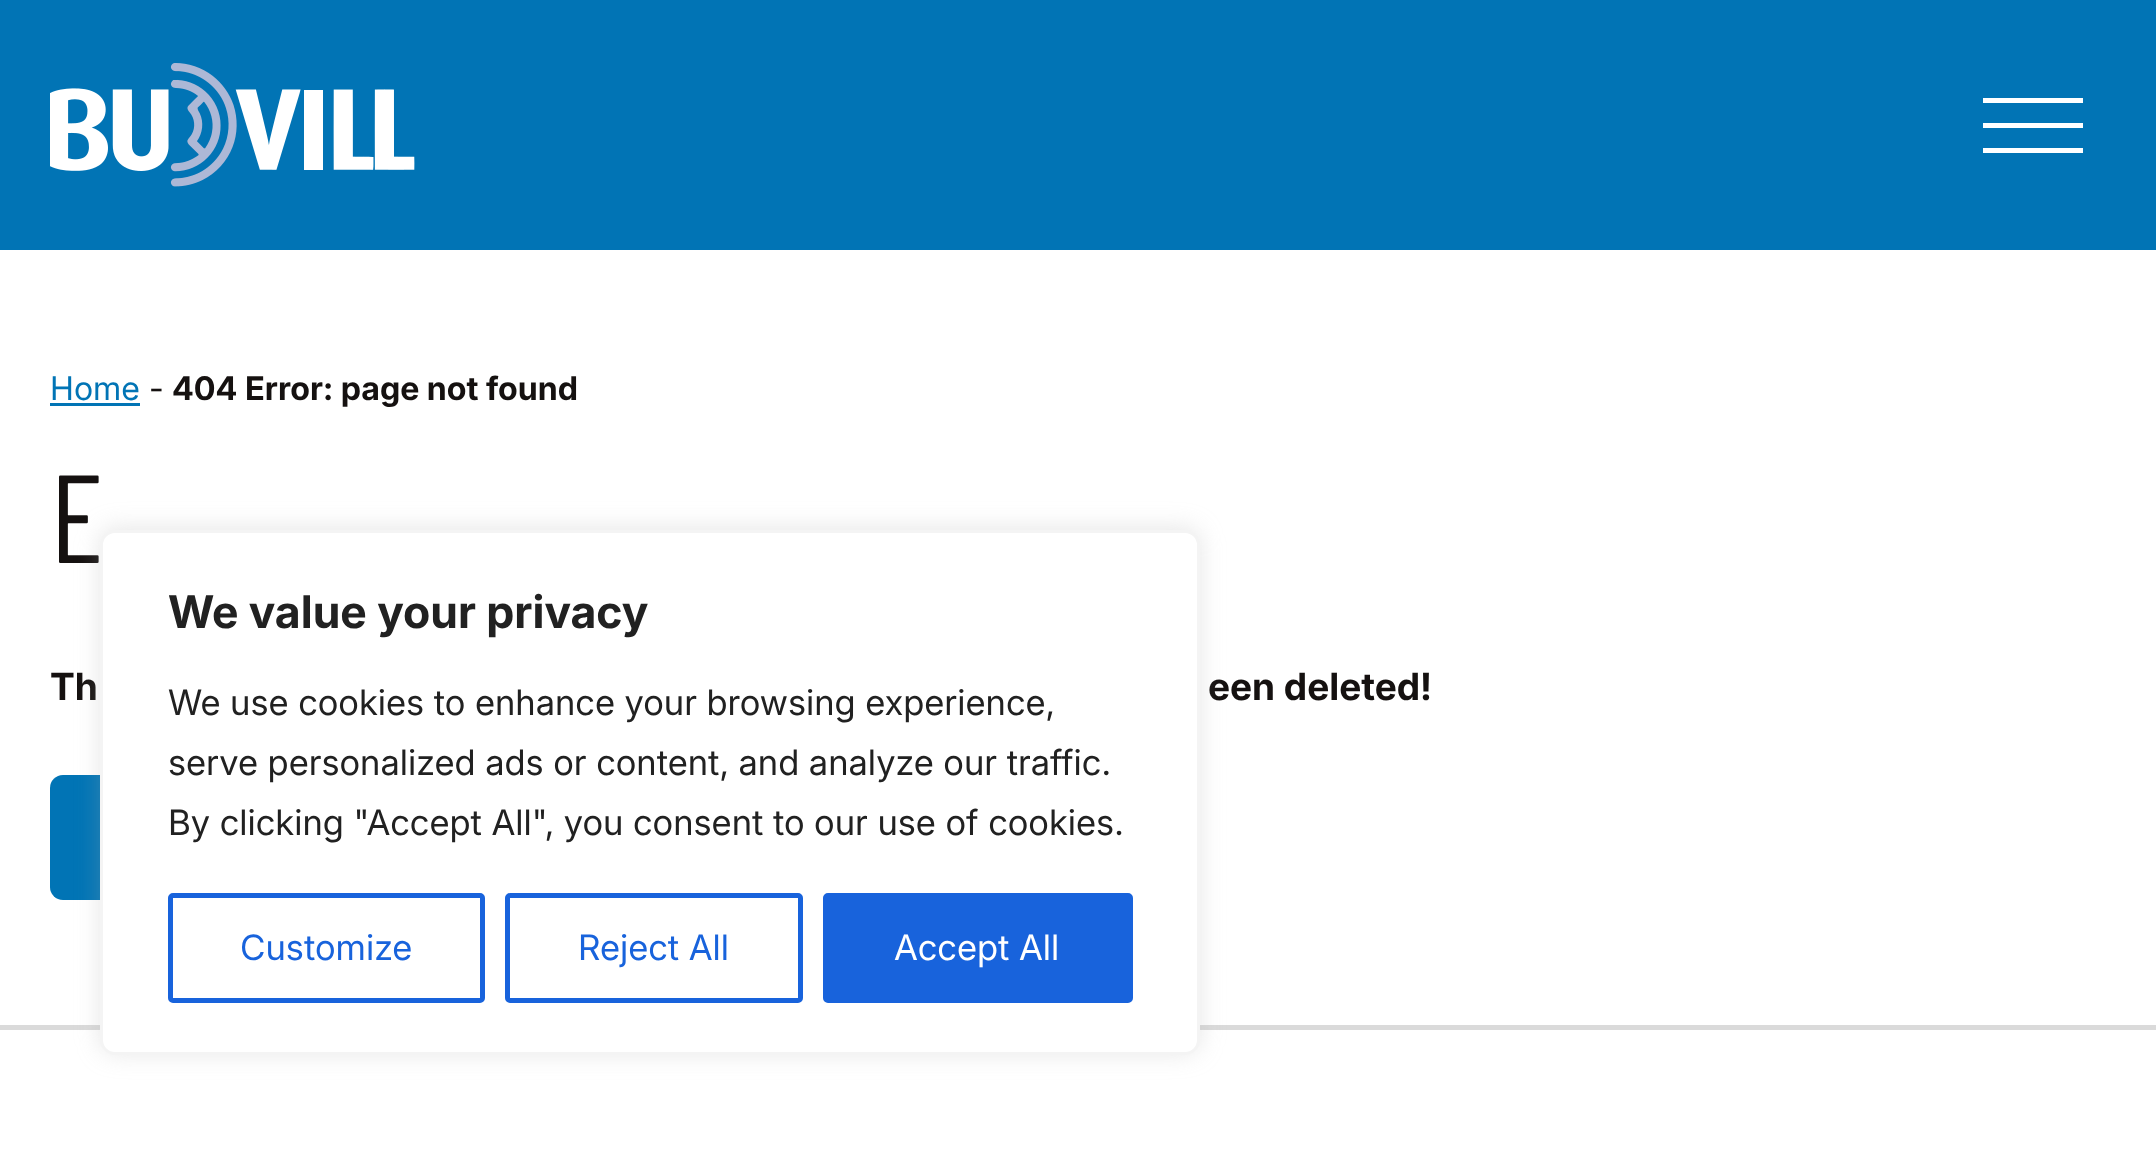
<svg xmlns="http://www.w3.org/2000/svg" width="2156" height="1155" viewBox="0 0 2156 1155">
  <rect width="100%" height="100%" fill="rgb(255,255,255)"/>
  <rect x="0" y="0" width="2156" height="250" fill="rgb(1,116,181)"/>
  <image x="50" y="63" width="365" height="124" href="pic1.png"/>
  <rect x="1983" y="123" width="100" height="5" fill="rgb(255,255,255)"/>
  <rect x="1983" y="98" width="100" height="5" fill="rgb(255,255,255)"/>
  <rect x="1983" y="148" width="100" height="5" fill="rgb(255,255,255)"/>
  <text x="50" y="400" font-family="Inter" font-size="32.5" fill="rgb(1,116,181)">Home</text>
  <rect x="50" y="403" width="90" height="3" fill="rgb(1,116,181)"/>
  <text x="149" y="400" font-family="Inter" font-size="32.5" fill="rgb(21,17,16)">-</text>
  <text x="172" y="400" font-family="Inter" font-size="32.5" font-weight="bold" fill="rgb(21,17,16)">404 Error: page not found</text>
  <text x="50" y="563" font-family="Barlow Condensed" font-size="125" fill="rgb(21,17,16)">E</text>
  <g font-family="Inter" font-size="37.5" font-weight="bold" fill="rgb(21,17,16)">
    <text x="50" y="700">Th</text>
    <text x="1208" y="700">een deleted!</text>
  </g>
  <rect x="50" y="775" width="468" height="125" rx="13" fill="rgb(1,116,181)"/>
  <rect x="0" y="1025" width="2156" height="5" fill="rgb(218,218,218)"/>
  <rect x="100" y="528" width="1100" height="525" rx="15" fill="rgba(172,171,171,0.3)" filter="blur(12.5px)"/>
  <rect x="101.5" y="531.5" width="1097" height="522" rx="13.5" fill="rgb(255,255,255)" stroke="rgb(244,244,244)" stroke-width="3"/>
  <text x="168" y="628" font-family="Inter" font-size="45" font-weight="bold" fill="rgb(33,33,33)">We value your privacy</text>
  <g font-family="Inter" font-size="35" fill="rgb(33,33,33)">
    <text>
      <tspan x="168" y="715">We use cookies to enhance your browsing experience,</tspan>
      <tspan x="168" y="775">serve personalized ads or content, and analyze our traffic.</tspan>
      <tspan x="168" y="835">By clicking "Accept All", you consent to our use of cookies.</tspan>
    </text>
  </g>
  <rect x="170.5" y="895.5" width="312" height="105" rx="2.5" fill="none" stroke="rgb(24,99,220)" stroke-width="5"/>
  <text x="240" y="960" font-family="Inter" font-size="35" fill="rgb(24,99,220)">Customize</text>
  <rect x="507.5" y="895.5" width="293" height="105" rx="2.5" fill="none" stroke="rgb(24,99,220)" stroke-width="5"/>
  <text x="578" y="960" font-family="Inter" font-size="35" fill="rgb(24,99,220)">Reject All</text>
  <rect x="825.5" y="895.5" width="305" height="105" rx="2.5" fill="rgb(24,99,220)" stroke="rgb(24,99,220)" stroke-width="5"/>
  <text x="894" y="960" font-family="Inter" font-size="35" fill="rgb(255,255,255)">Accept All</text>
</svg>
